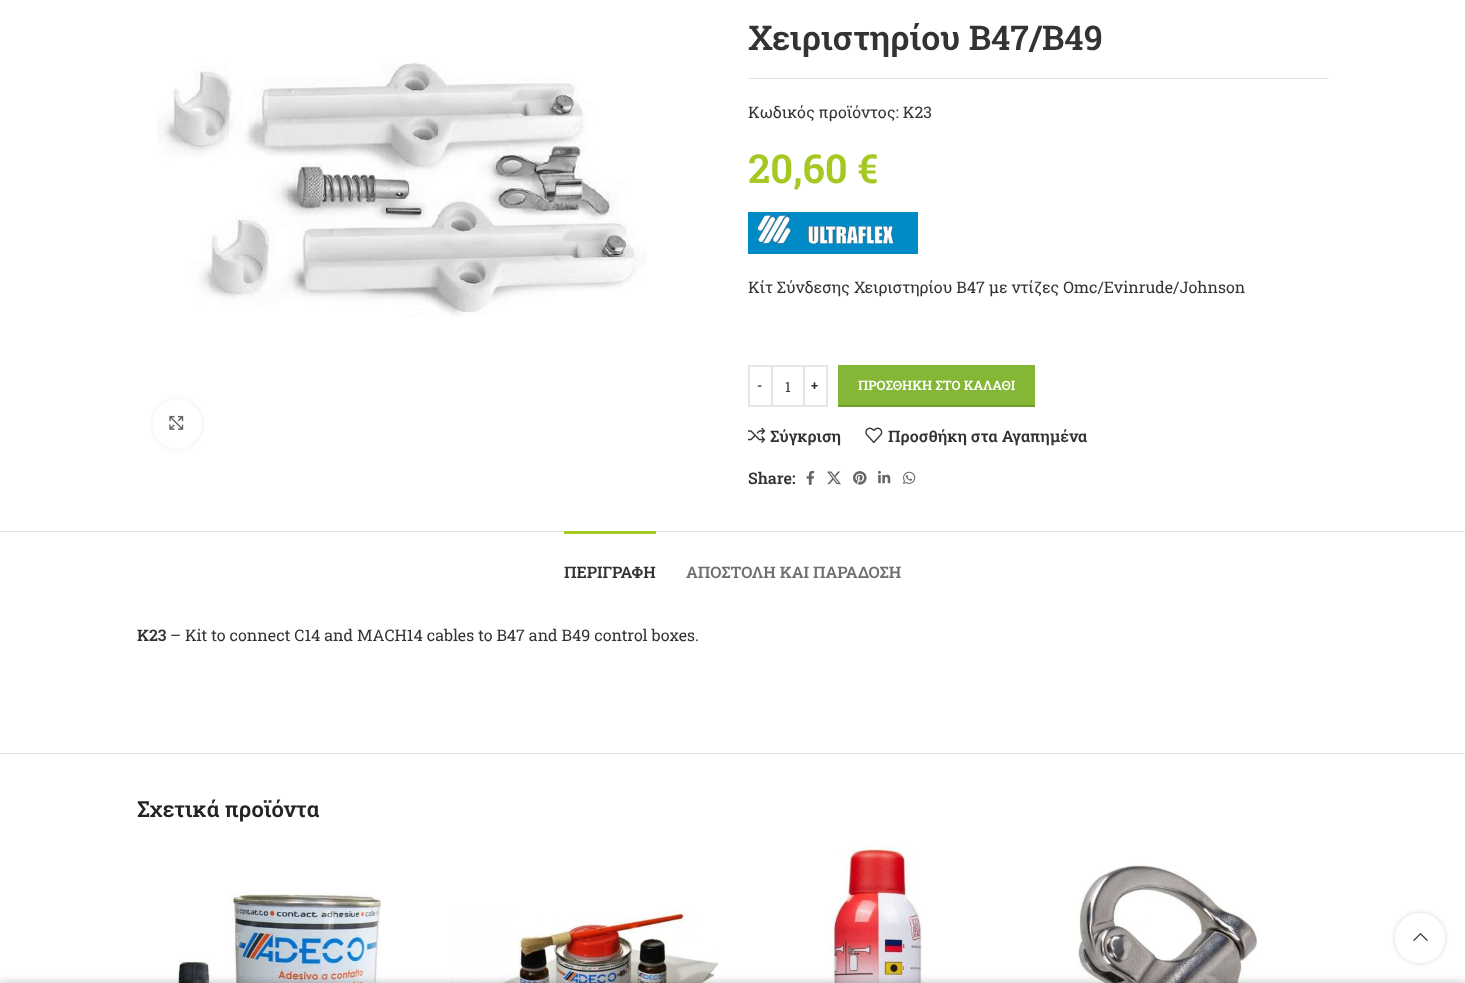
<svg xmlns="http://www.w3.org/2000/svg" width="1465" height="983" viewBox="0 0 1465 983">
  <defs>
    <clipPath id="clip1"><path d="M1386 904H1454V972H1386ZM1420 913C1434 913 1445 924 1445 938C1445 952 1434 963 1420 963C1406 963 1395 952 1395 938C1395 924 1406 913 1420 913Z" clip-rule="evenodd"/></clipPath>
  </defs>
  <rect width="100%" height="100%" fill="rgb(255,255,255)"/>
  <image x="157" y="61" width="490" height="256" href="pic1.png"/>
  <rect x="152" y="399" width="50" height="50" rx="25" fill="rgba(0,0,0,0.08)" filter="blur(2.5px)"/>
  <circle cx="177" cy="424" r="25" fill="rgb(255,255,255)"/>
  <image x="169" y="415" width="15" height="15" href="pic2.png"/>
  <text x="748" y="50" font-family="Roboto Slab" font-size="34" font-weight="600" fill="rgb(51,51,51)">Χειριστηρίου Β47/B49</text>
  <rect x="748" y="78" width="581" height="1" fill="rgb(228,228,228)"/>
  <text x="748" y="118" font-family="Roboto Slab" font-size="16" fill="rgb(51,51,51)">Κωδικός προϊόντος: Κ23</text>
  <text x="748" y="183" font-family="Roboto Slab" font-size="40" font-weight="600" fill="rgb(166,200,34)">20,60 €</text>
  <image x="748" y="212" width="170" height="42" href="pic3.png"/>
  <text x="748" y="293" font-family="Roboto Slab" font-size="16" fill="rgb(51,51,51)">Kίτ Σύνδεσης Χειριστηρίου Β47 με ντίζες Omc/Evinrude/Johnson</text>
  <rect x="749" y="366" width="23" height="40" fill="none" stroke="rgb(230,230,230)" stroke-width="2"/>
  <text x="757" y="390" font-family="Roboto Slab" font-size="13" font-weight="600" fill="rgb(51,51,51)">-</text>
  <rect x="773" y="365" width="30" height="2" fill="rgb(230,230,230)"/>
  <rect x="773" y="405" width="30" height="2" fill="rgb(230,230,230)"/>
  <text x="785" y="392" font-family="Roboto Slab" font-size="14" fill="rgb(51,51,51)">1</text>
  <rect x="804" y="366" width="23" height="40" fill="none" stroke="rgb(230,230,230)" stroke-width="2"/>
  <text x="811" y="390" font-family="Roboto Slab" font-size="13" font-weight="600" fill="rgb(51,51,51)">+</text>
  <rect x="838" y="365" width="197" height="40" fill="rgb(131,183,53)"/>
  <rect x="838" y="405" width="197" height="2" fill="rgb(111,156,45)"/>
  <text x="858" y="390" font-family="Roboto Slab" font-size="13" font-weight="600" fill="rgb(255,255,255)">ΠΡΟΣΘΗΚΗ ΣΤΟ ΚΑΛΑΘΙ</text>
  <image x="748" y="427" width="18" height="16" href="pic4.png"/>
  <text x="770" y="442" font-family="Roboto Slab" font-size="16" font-weight="600" fill="rgb(51,51,51)">Σύγκριση</text>
  <image x="865" y="427" width="18" height="16" href="pic5.png"/>
  <g font-family="Roboto Slab" font-size="16" font-weight="600" fill="rgb(51,51,51)">
    <text x="888" y="442">Προσθήκη στα Αγαπημένα</text>
    <text x="748" y="484">Share:</text>
  </g>
  <image x="806" y="470" width="9" height="15" href="pic6.png"/>
  <image x="827" y="471" width="14" height="14" href="pic7.png"/>
  <image x="853" y="471" width="14" height="14" href="pic8.png"/>
  <image x="878" y="470" width="13" height="14" href="pic9.png"/>
  <image x="903" y="471" width="13" height="13" href="pic10.png"/>
  <rect x="0" y="531" width="1465" height="1" fill="rgb(228,228,228)"/>
  <rect x="0" y="753" width="1465" height="1" fill="rgb(228,228,228)"/>
  <rect x="564" y="531" width="92" height="3" fill="rgb(166,200,34)"/>
  <text x="564" y="578" font-family="Roboto Slab" font-size="16" font-weight="600" fill="rgb(51,51,51)">ΠΕΡΙΓΡΑΦΗ</text>
  <text x="686" y="578" font-family="Roboto Slab" font-size="16" font-weight="600" fill="rgb(112,112,112)">ΑΠΟΣΤΟΛΗ ΚΑΙ ΠΑΡΑΔΟΣΗ</text>
  <text x="137" y="641" font-family="Roboto Slab" font-size="16" font-weight="600" fill="rgb(51,51,51)">K23</text>
  <text x="170" y="641" font-family="Roboto Slab" font-size="16" fill="rgb(51,51,51)">– Kit to connect C14 and MACH14 cables to B47 and B49 control boxes.</text>
  <text x="137" y="817" font-family="Roboto Slab" font-size="22" font-weight="600" fill="rgb(36,36,36)">Σχετικά προϊόντα</text>
  <image x="177" y="892" width="205" height="91" href="pic11.png"/>
  <image x="451" y="909" width="269" height="74" href="pic12.png"/>
  <image x="827" y="845" width="95" height="138" href="pic13.png"/>
  <image x="1077" y="863" width="182" height="120" href="pic14.png"/>
  <g clip-path="url(#clip1)">
    <rect x="1395" y="913" width="50" height="50" rx="25" fill="rgba(0,0,0,0.17)" filter="blur(2.5px)"/>
  </g>
  <circle cx="1420" cy="938" r="25" fill="rgba(255,255,255,0.9)"/>
  <image x="1413" y="932" width="15" height="9" href="pic15.png"/>
  <rect x="0" y="983" width="1465" height="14" fill="rgba(0,0,0,0.12)" filter="blur(4.5px)"/>
  <rect x="0" y="983" width="1465" height="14" fill="rgba(0,0,0,0.14)" filter="blur(4.5px)"/>
</svg>
